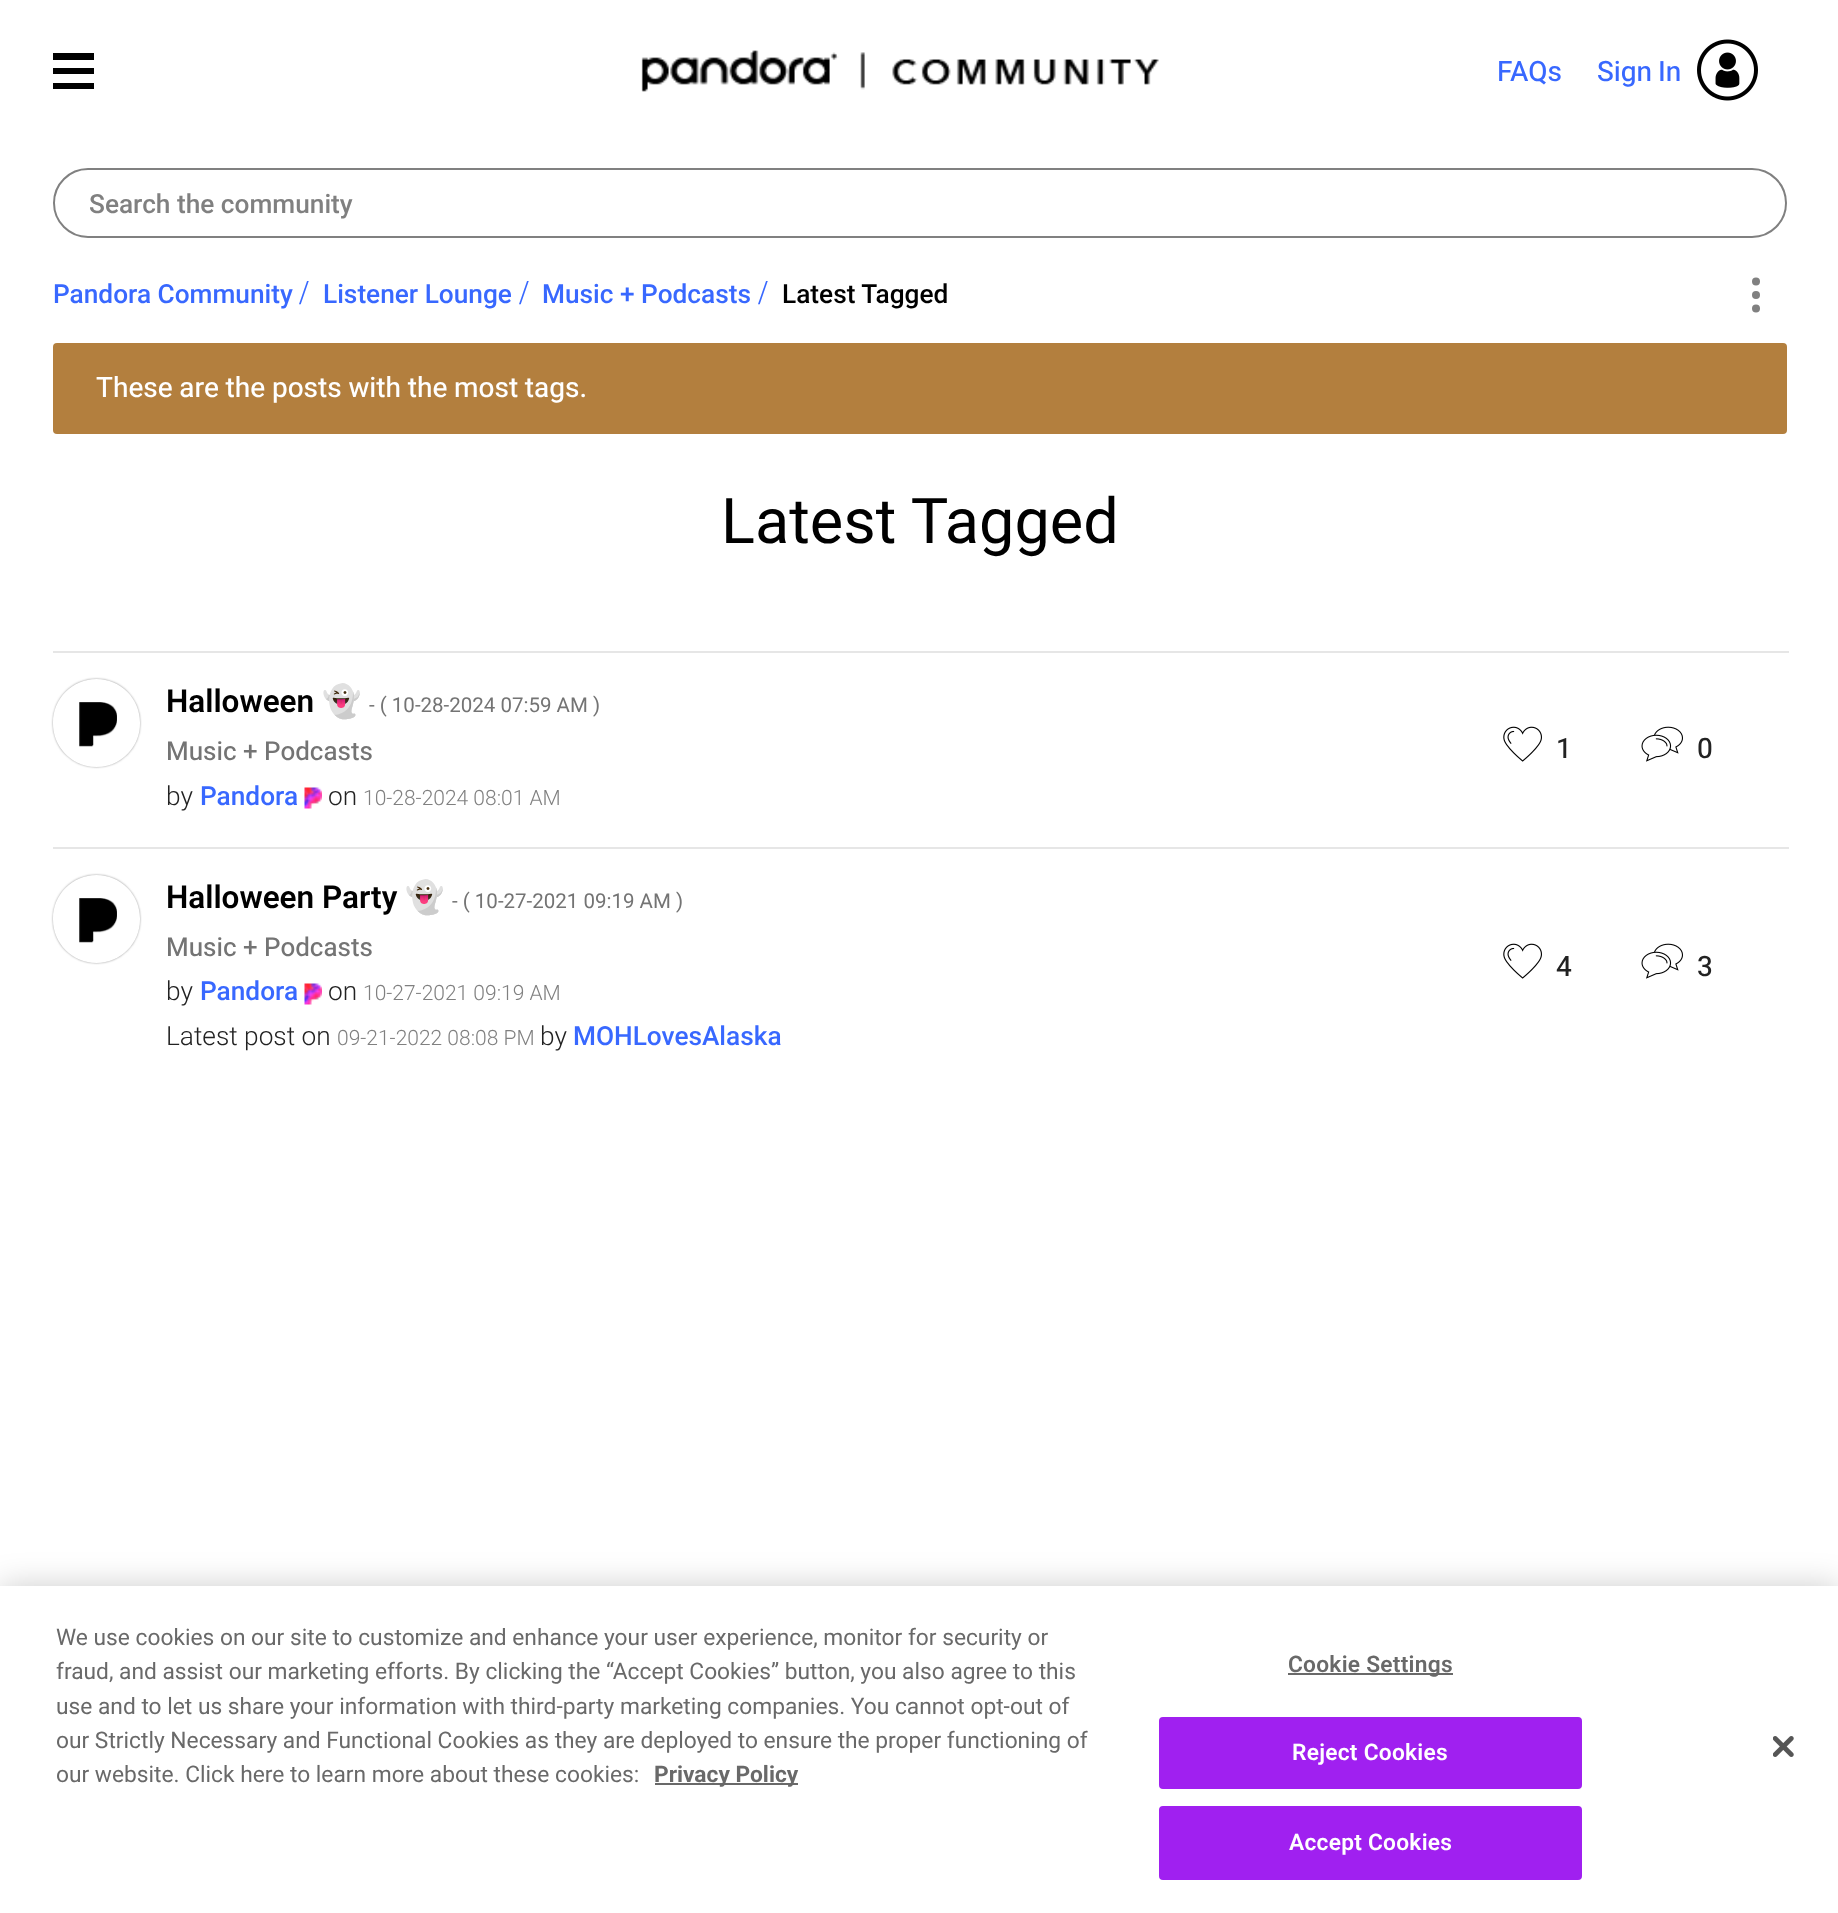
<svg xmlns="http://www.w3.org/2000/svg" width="1838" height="1913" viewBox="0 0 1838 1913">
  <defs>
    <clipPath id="clip1"><rect x="53" y="49" width="42" height="42"/></clipPath>
    <clipPath id="clip2"><path d="M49 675H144V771H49ZM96.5 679C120.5 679 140 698.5 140 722.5V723.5C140 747.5 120.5 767 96.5 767C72.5 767 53 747.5 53 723.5V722.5C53 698.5 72.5 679 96.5 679Z" clip-rule="evenodd"/></clipPath>
    <clipPath id="clip3"><path d="M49 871H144V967H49ZM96.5 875C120.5 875 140 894.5 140 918.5V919.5C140 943.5 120.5 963 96.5 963C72.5 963 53 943.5 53 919.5V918.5C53 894.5 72.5 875 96.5 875Z" clip-rule="evenodd"/></clipPath>
  </defs>
  <rect width="100%" height="100%" fill="rgb(255,255,255)"/>
  <g clip-path="url(#clip1)">
    <path d="M52 53H94V60H52ZM52 68H94V74H52ZM52 83H94V89H52Z" fill="rgb(0,0,0)" fill-rule="evenodd"/>
  </g>
  <image x="641" y="50" width="518" height="42" href="pic1.png"/>
  <g font-family="'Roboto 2'" font-size="28" fill="rgb(56,104,255)">
    <text x="1497" y="81">FAQs</text>
    <text x="1597" y="81" word-spacing="-1">Sign In</text>
  </g>
  <image x="1697" y="39" width="61" height="62" href="pic2.png"/>
  <rect x="54" y="169" width="1732" height="68" rx="34" fill="none" stroke="rgb(128,128,128)" stroke-width="2"/>
  <text x="89" y="213" font-family="Roboto" font-size="26.25" font-weight="500" fill="rgb(128,128,128)">Search the community</text>
  <text x="53" y="303" font-family="Roboto" font-size="26.25" font-weight="500" fill="rgb(56,104,255)">Pandora Community</text>
  <text x="299" y="304" font-family="Liberation Serif" font-size="35" fill="rgb(56,104,255)">/</text>
  <text x="323" y="303" font-family="Roboto" font-size="26.25" font-weight="500" fill="rgb(56,104,255)">Listener Lounge</text>
  <text x="519" y="304" font-family="Liberation Serif" font-size="35" fill="rgb(56,104,255)">/</text>
  <text x="542" y="303" font-family="Roboto" font-size="26.25" font-weight="500" fill="rgb(56,104,255)">Music + Podcasts</text>
  <text x="758" y="304" font-family="Liberation Serif" font-size="35" fill="rgb(56,104,255)">/</text>
  <text x="782" y="303" font-family="Roboto" font-size="26.25" font-weight="500" fill="rgb(0,0,0)">Latest Tagged</text>
  <circle cx="1756" cy="281.5" r="4" fill="rgb(128,128,128)"/>
  <circle cx="1756" cy="295" r="4" fill="rgb(128,128,128)"/>
  <circle cx="1756" cy="308.5" r="4" fill="rgb(128,128,128)"/>
  <rect x="53" y="343" width="1734" height="91" rx="4" fill="rgb(179,127,62)"/>
  <text x="96" y="397" word-spacing="-0.25" font-family="'Roboto 2'" font-size="28" fill="rgb(255,255,255)">These are the posts with the most tags.</text>
  <text x="721" y="543" font-family="Roboto" font-size="63" fill="rgb(0,0,0)">Latest Tagged</text>
  <rect x="53" y="651" width="1736" height="2" fill="rgb(230,230,230)"/>
  <g clip-path="url(#clip2)">
    <rect x="53" y="679" width="87" height="88" rx="43.5" fill="rgb(153,153,153)" filter="blur(1px)"/>
  </g>
  <image x="79" y="702" width="38" height="45" href="pic3.png"/>
  <text x="166" y="712" font-family="Roboto" font-size="31.5" font-weight="600" fill="rgb(0,0,0)">Halloween</text>
  <text x="322" y="712" font-family="Noto Color Emoji" font-size="31.5" font-weight="bold" fill="rgb(0,0,0)">👻</text>
  <text x="369" y="712" font-family="Roboto" font-size="20.5" fill="rgb(116,116,116)">- ( 10-28-2024 07:59 AM )</text>
  <text x="166" y="760" font-family="'Roboto 2'" font-size="26" fill="rgb(116,116,116)">Music + Podcasts</text>
  <text x="166" y="805" font-family="Roboto" font-size="26.25" font-weight="300" fill="rgb(34,34,34)">by</text>
  <text x="200" y="805" font-family="Roboto" font-size="26.25" font-weight="500" fill="rgb(56,104,255)">Pandora</text>
  <image x="304" y="787" width="18" height="22" href="pic4.png"/>
  <text x="328" y="805" font-family="Roboto" font-size="26.25" font-weight="300" fill="rgb(34,34,34)">on</text>
  <text x="363" y="805" font-family="Roboto" font-size="21" font-weight="300" fill="rgb(128,128,128)">10-28-2024 08:01 AM</text>
  <image x="1503" y="726" width="39" height="36" href="pic5.png"/>
  <text x="1556" y="758" font-family="'Roboto 2'" font-size="28" fill="rgb(34,34,34)">1</text>
  <image x="1641" y="726" width="42" height="36" href="pic6.png"/>
  <text x="1697" y="758" font-family="'Roboto 2'" font-size="28" fill="rgb(34,34,34)">0</text>
  <rect x="53" y="847" width="1736" height="2" fill="rgb(230,230,230)"/>
  <g clip-path="url(#clip3)">
    <rect x="53" y="875" width="87" height="88" rx="43.5" fill="rgb(153,153,153)" filter="blur(1px)"/>
  </g>
  <image x="79" y="898" width="38" height="45" href="pic7.png"/>
  <text x="166" y="908" font-family="Roboto" font-size="31.5" font-weight="600" fill="rgb(0,0,0)">Halloween Party</text>
  <text x="405" y="908" font-family="Noto Color Emoji" font-size="31.5" font-weight="bold" fill="rgb(0,0,0)">👻</text>
  <text x="452" y="908" font-family="Roboto" font-size="20.5" fill="rgb(116,116,116)">- ( 10-27-2021 09:19 AM )</text>
  <text x="166" y="956" font-family="'Roboto 2'" font-size="26" fill="rgb(116,116,116)">Music + Podcasts</text>
  <text x="166" y="1000" font-family="Roboto" font-size="26.25" font-weight="300" fill="rgb(34,34,34)">by</text>
  <text x="200" y="1000" font-family="Roboto" font-size="26.25" font-weight="500" fill="rgb(56,104,255)">Pandora</text>
  <image x="304" y="983" width="18" height="22" href="pic4.png"/>
  <text x="328" y="1000" font-family="Roboto" font-size="26.25" font-weight="300" fill="rgb(34,34,34)">on</text>
  <text x="363" y="1000" font-family="Roboto" font-size="21" font-weight="300" fill="rgb(128,128,128)">10-27-2021 09:19 AM</text>
  <text x="166" y="1045" font-family="Roboto" font-size="26.25" font-weight="300" fill="rgb(34,34,34)">Latest post on</text>
  <text x="337" y="1045" font-family="Roboto" font-size="21" font-weight="300" fill="rgb(128,128,128)">09-21-2022 08:08 PM</text>
  <text x="540" y="1045" font-family="Roboto" font-size="26.25" font-weight="300" fill="rgb(34,34,34)">by</text>
  <text x="573" y="1045" font-family="Roboto" font-size="26.25" font-weight="500" fill="rgb(56,104,255)">MOHLovesAlaska</text>
  <image x="1503" y="943" width="39" height="36" href="pic5.png"/>
  <text x="1556" y="976" font-family="'Roboto 2'" font-size="28" fill="rgb(34,34,34)">4</text>
  <image x="1641" y="943" width="42" height="36" href="pic6.png"/>
  <text x="1697" y="976" font-family="'Roboto 2'" font-size="28" fill="rgb(34,34,34)">3</text>
  <rect x="0" y="1586" width="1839" height="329" fill="rgba(0,0,0,0.2)" filter="blur(16px)"/>
  <rect x="0" y="1586" width="1838" height="327" fill="rgb(255,255,255)"/>
  <g font-family="Roboto" font-size="22.75" fill="rgb(105,105,105)">
    <text>
      <tspan x="56" y="1645">We use cookies on our site to customize and enhance your user experience, monitor for security or</tspan>
      <tspan x="56" y="1679">fraud, and assist our marketing efforts. By clicking the “Accept Cookies” button, you also agree to this</tspan>
      <tspan x="56" y="1714">use and to let us share your information with third-party marketing companies. You cannot opt-out of</tspan>
      <tspan x="56" y="1748">our Strictly Necessary and Functional Cookies as they are deployed to ensure the proper functioning of</tspan>
      <tspan x="56" y="1782">our website. Click here to learn more about these cookies:</tspan>
    </text>
  </g>
  <rect x="655" y="1783" width="143" height="2" fill="rgb(105,105,105)"/>
  <text x="654" y="1782" font-family="Roboto" font-size="22.75" font-weight="bold" fill="rgb(105,105,105)">Privacy Policy</text>
  <rect x="1288" y="1673" width="165" height="2" fill="rgb(105,105,105)"/>
  <text x="1288" y="1672" font-family="Roboto" font-size="22.75" font-weight="600" letter-spacing="0.25" fill="rgb(105,105,105)">Cookie Settings</text>
  <rect x="1160" y="1718" width="421" height="70" rx="3" fill="rgb(160,32,240)" stroke="rgb(160,32,240)" stroke-width="2"/>
  <text x="1292" y="1760" font-family="Roboto" font-size="22.75" font-weight="600" letter-spacing="0.25" fill="rgb(255,255,255)">Reject Cookies</text>
  <rect x="1160" y="1807" width="421" height="72" rx="3" fill="rgb(160,32,240)" stroke="rgb(160,32,240)" stroke-width="2"/>
  <text x="1289" y="1850" font-family="Roboto" font-size="22.75" font-weight="600" letter-spacing="0.25" fill="rgb(255,255,255)">Accept Cookies</text>
  <image x="1773" y="1736" width="21" height="21" href="pic8.png"/>
</svg>
